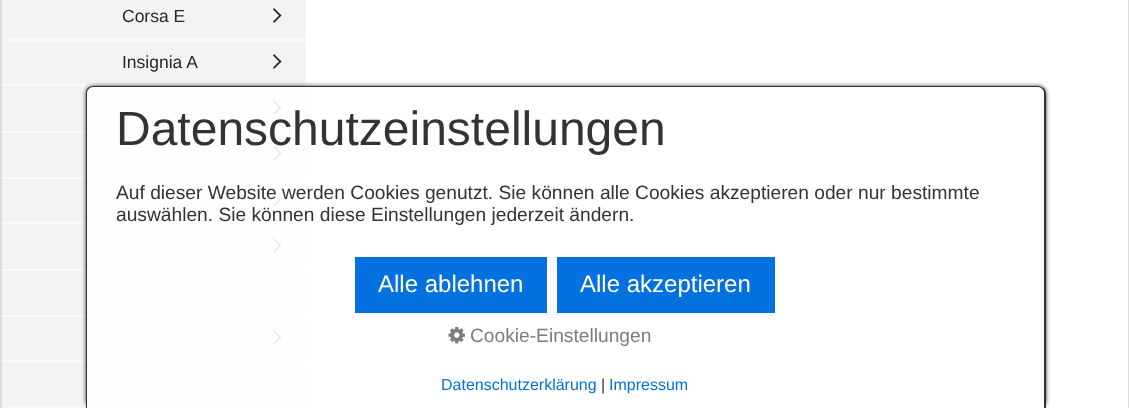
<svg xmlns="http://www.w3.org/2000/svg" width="1129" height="408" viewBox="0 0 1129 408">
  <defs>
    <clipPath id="clip1"><path d="M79 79H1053V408H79ZM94 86H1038C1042.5 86 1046 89.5 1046 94V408H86V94C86 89.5 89.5 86 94 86Z" clip-rule="evenodd"/></clipPath>
  </defs>
  <rect width="100%" height="100%" fill="rgb(255,255,255)"/>
  <rect x="1128" y="0" width="1" height="408" fill="rgb(221,221,221)"/>
  <rect x="0" y="0" width="2" height="408" fill="rgb(221,221,221)"/>
  <rect x="2" y="0" width="304" height="407" fill="rgb(243,243,243)"/>
  <text x="122" y="22" font-family="Liberation Sans" font-size="17.5" fill="rgb(39,39,39)">Corsa E</text>
  <path d="M274 8L281.5 15.5L280 16.5L273 9.5Z" fill="rgb(39,39,39)"/>
  <path d="M280 14.5L281.5 15.5L274 23L273 21.5Z" fill="rgb(39,39,39)"/>
  <rect x="2" y="39" width="304" height="2" fill="rgb(250,250,250)"/>
  <text x="122" y="68" font-family="Liberation Sans" font-size="17.5" fill="rgb(39,39,39)">Insignia A</text>
  <path d="M274 54L281.5 61.5L280 62.5L273 55.5Z" fill="rgb(39,39,39)"/>
  <path d="M280 60.5L281.5 61.5L274 69L273 67.5Z" fill="rgb(39,39,39)"/>
  <rect x="2" y="84" width="304" height="2" fill="rgb(250,250,250)"/>
  <path d="M274 100L281.5 107.5L280 108.5L273 101.5Z" fill="rgb(39,39,39)"/>
  <path d="M280 106.5L281.5 107.5L274 115L273 113.5Z" fill="rgb(39,39,39)"/>
  <rect x="2" y="131" width="304" height="2" fill="rgb(250,250,250)"/>
  <path d="M274 146L281.5 153.5L280 154.5L273 147Z" fill="rgb(39,39,39)"/>
  <path d="M280 152.5L281.5 153.5L274 161L273 159.5Z" fill="rgb(39,39,39)"/>
  <rect x="2" y="177" width="304" height="2" fill="rgb(250,250,250)"/>
  <path d="M274 192L281.5 199.5L280 200.5L273 193Z" fill="rgb(39,39,39)"/>
  <path d="M280 198.5L281.5 199.5L274 206.5L273 205.5Z" fill="rgb(39,39,39)"/>
  <rect x="2" y="222" width="304" height="2" fill="rgb(250,250,250)"/>
  <path d="M274 238L281.5 245.5L280 246.5L273 239Z" fill="rgb(39,39,39)"/>
  <path d="M280 244.5L281.5 245.5L274 252.5L273 251.5Z" fill="rgb(39,39,39)"/>
  <rect x="2" y="269" width="304" height="2" fill="rgb(250,250,250)"/>
  <rect x="2" y="315" width="304" height="2" fill="rgb(250,250,250)"/>
  <path d="M274 330L281.5 337.5L280 338.5L273 331Z" fill="rgb(39,39,39)"/>
  <path d="M280 336.5L281.5 337.5L274 344.5L273 343.5Z" fill="rgb(39,39,39)"/>
  <rect x="2" y="360" width="304" height="2" fill="rgb(250,250,250)"/>
  <rect x="2" y="407" width="304" height="1" fill="rgb(250,250,250)"/>
  <g clip-path="url(#clip1)">
    <rect x="86" y="86" width="960" height="322" rx="8" fill="rgba(0,0,0,0.8)" filter="blur(2px)"/>
  </g>
  <path d="M94 86H1038C1042.5 86 1046 89.5 1046 94V408H86V94C86 89.5 89.5 86 94 86Z" fill="rgba(255,255,255,0.9)"/>
  <path d="M93 86H1038C1042 86 1046 89 1046 93V408H86V93C86 89 89 86 93 86ZM93 87H1038C1041 87 1044 90 1044 93V408H87V93C87 90 90 87 93 87Z" fill="rgb(51,51,51)" fill-rule="evenodd"/>
  <text x="116" y="145" font-family="Liberation Sans" font-size="48" fill="rgb(51,51,51)">Datenschutzeinstellungen</text>
  <g font-family="Liberation Sans" font-size="19.2" fill="rgb(51,51,51)">
    <text>
      <tspan x="116" y="199">Auf dieser Website werden Cookies genutzt. Sie können alle Cookies akzeptieren oder nur bestimmte</tspan>
      <tspan x="116" y="221">auswählen. Sie können diese Einstellungen jederzeit ändern.</tspan>
    </text>
  </g>
  <rect x="355" y="257" width="192" height="56" fill="rgb(3,113,223)"/>
  <text x="378" y="292" font-family="Liberation Sans" font-size="24" fill="rgb(255,255,255)">Alle ablehnen</text>
  <rect x="557" y="257" width="218" height="56" fill="rgb(3,113,223)"/>
  <text x="580" y="292" font-family="Liberation Sans" font-size="24" fill="rgb(255,255,255)">Alle akzeptieren</text>
  <image x="448" y="326" width="17" height="18" href="pic1.png"/>
  <text x="470" y="342" font-family="Liberation Sans" font-size="19.2" fill="rgb(124,124,124)">Cookie-Einstellungen</text>
  <text x="441" y="390" font-family="Liberation Sans" font-size="16" fill="rgb(3,113,223)">Datenschutzerklärung</text>
  <text x="601" y="390" font-family="Liberation Sans" font-size="16" fill="rgb(51,51,51)">|</text>
  <text x="609" y="390" font-family="Liberation Sans" font-size="16" fill="rgb(3,113,223)">Impressum</text>
</svg>
